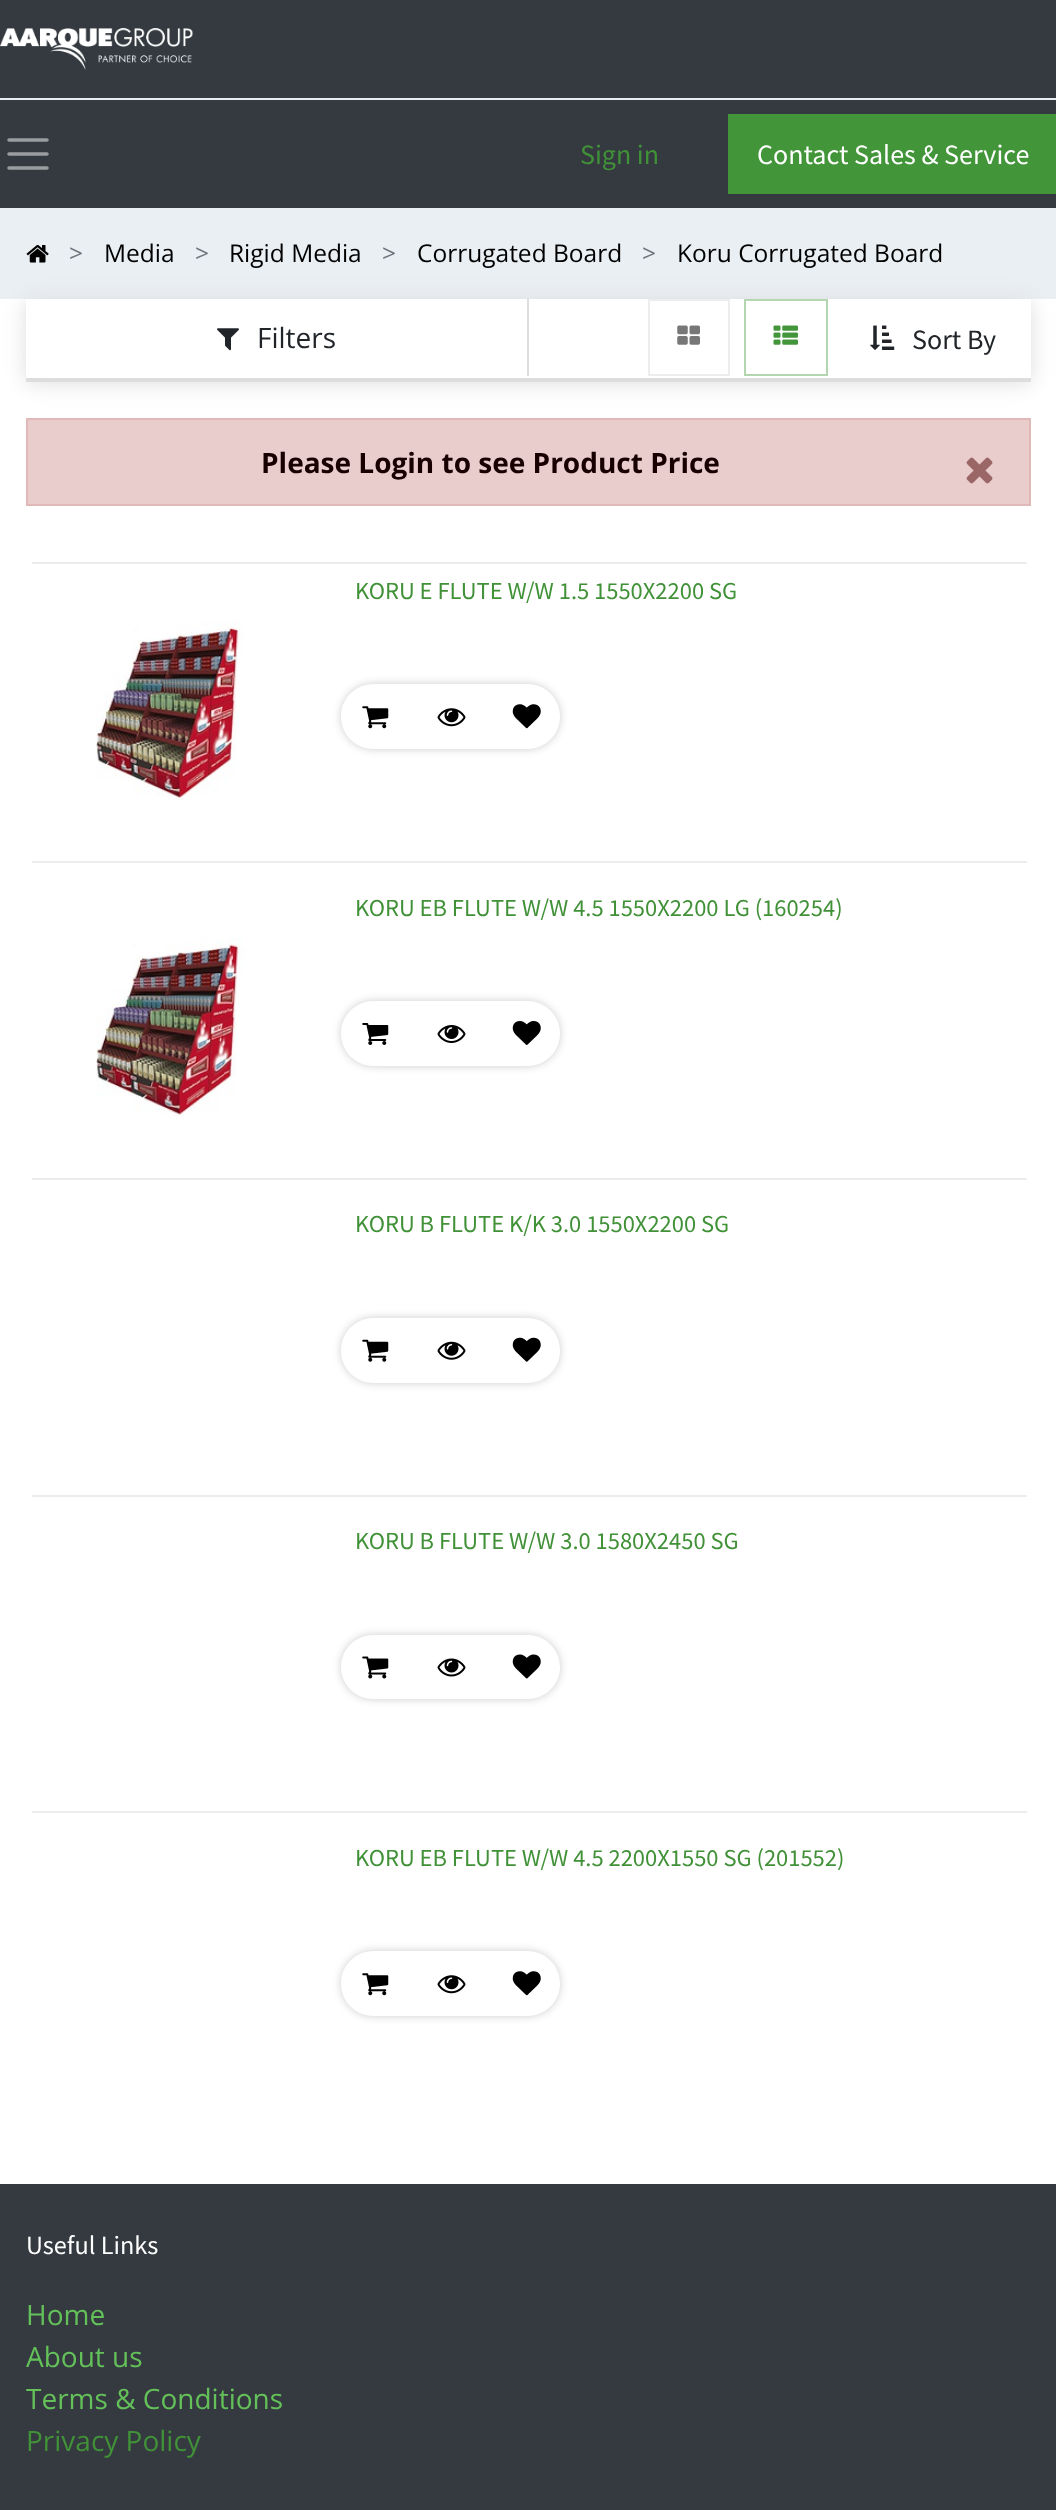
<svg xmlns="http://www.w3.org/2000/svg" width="1056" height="2510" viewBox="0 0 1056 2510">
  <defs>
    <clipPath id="clip1"><path d="M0 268H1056V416H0ZM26 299H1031V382H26Z" clip-rule="evenodd"/></clipPath>
    <clipPath id="clip2"><path d="M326 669H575V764H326ZM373.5 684H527.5C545.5 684 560 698.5 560 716.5C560 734.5 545.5 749 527.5 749H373.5C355.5 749 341 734.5 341 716.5C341 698.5 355.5 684 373.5 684Z" clip-rule="evenodd"/></clipPath>
    <clipPath id="clip3"><path d="M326 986H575V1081H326ZM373.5 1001H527.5C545.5 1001 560 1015.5 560 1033.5C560 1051.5 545.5 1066 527.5 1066H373.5C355.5 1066 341 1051.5 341 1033.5C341 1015.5 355.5 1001 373.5 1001Z" clip-rule="evenodd"/></clipPath>
    <clipPath id="clip4"><path d="M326 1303H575V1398H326ZM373.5 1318H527.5C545.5 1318 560 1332.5 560 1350.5C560 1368.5 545.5 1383 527.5 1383H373.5C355.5 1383 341 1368.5 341 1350.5C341 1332.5 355.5 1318 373.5 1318Z" clip-rule="evenodd"/></clipPath>
    <clipPath id="clip5"><path d="M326 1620H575V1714H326ZM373 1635H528C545.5 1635 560 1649.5 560 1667C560 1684.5 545.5 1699 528 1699H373C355.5 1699 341 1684.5 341 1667C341 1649.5 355.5 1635 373 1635Z" clip-rule="evenodd"/></clipPath>
    <clipPath id="clip6"><path d="M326 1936H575V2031H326ZM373.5 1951H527.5C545.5 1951 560 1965.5 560 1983.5C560 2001.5 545.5 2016 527.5 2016H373.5C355.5 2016 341 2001.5 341 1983.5C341 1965.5 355.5 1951 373.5 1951Z" clip-rule="evenodd"/></clipPath>
  </defs>
  <rect width="100%" height="100%" fill="rgb(255,255,255)"/>
  <rect x="0" y="0" width="1056" height="208" fill="rgb(52,58,64)"/>
  <image x="0" y="28" width="193" height="42" href="pic1.png"/>
  <rect x="0" y="98" width="1056" height="2" fill="rgb(233,236,239)"/>
  <path d="M9 140H47M9 154H47M9 168H47" fill="none" stroke="rgb(154,157,160)" stroke-width="3.5" stroke-linecap="round"/>
  <text x="580" y="164" font-family="Source Sans Pro" font-size="28" fill="rgb(64,145,55)">Sign in</text>
  <rect x="728" y="114" width="328" height="80" fill="rgb(66,149,56)"/>
  <text x="757" y="164" font-family="Source Sans Pro" font-size="28" fill="rgb(255,255,255)">Contact Sales &amp; Service</text>
  <rect x="0" y="208" width="1056" height="91" fill="rgb(234,239,243)"/>
  <image x="26" y="245" width="23" height="18" href="pic2.png"/>
  <text x="69" y="262" font-family="Open Sans" font-size="24.5" fill="rgb(108,117,125)">&gt;</text>
  <text x="104" y="262" font-family="Open Sans" font-size="24.5" fill="rgb(0,0,0)">Media</text>
  <text x="195" y="262" font-family="Open Sans" font-size="24.5" fill="rgb(108,117,125)">&gt;</text>
  <text x="229" y="262" font-family="Open Sans" font-size="24.5" fill="rgb(0,0,0)">Rigid Media</text>
  <text x="382" y="262" font-family="Open Sans" font-size="24.5" fill="rgb(108,117,125)">&gt;</text>
  <text x="417" y="262" font-family="Open Sans" font-size="24.5" fill="rgb(0,0,0)">Corrugated Board</text>
  <text x="642" y="262" font-family="Open Sans" font-size="24.5" fill="rgb(108,117,125)">&gt;</text>
  <text x="677" y="262" font-family="Open Sans" font-size="24.5" fill="rgb(0,0,0)">Koru Corrugated Board</text>
  <g clip-path="url(#clip1)">
    <rect x="26" y="301" width="1005" height="82" fill="rgb(221,221,221)" filter="blur(10.5px)"/>
  </g>
  <rect x="26" y="378" width="1005" height="4" fill="rgb(221,221,221)"/>
  <rect x="527" y="299" width="2" height="77" fill="rgb(221,221,221)"/>
  <image x="217" y="328" width="22" height="23" href="pic3.png"/>
  <text x="257" y="348" font-family="Open Sans" font-size="28" fill="rgb(33,37,41)">Filters</text>
  <rect x="649" y="300" width="80" height="75" fill="none" stroke="rgb(237,237,237)" stroke-width="2"/>
  <image x="677" y="325" width="23" height="20" href="pic4.png"/>
  <rect x="745" y="300" width="82" height="75" fill="none" stroke="rgba(66,149,56,0.4)" stroke-width="2"/>
  <image x="773" y="325" width="25" height="20" href="pic5.png"/>
  <image x="870" y="325" width="25" height="25" href="pic6.png"/>
  <text x="912" y="349" font-family="Source Sans Pro" font-size="28" fill="rgb(33,37,41)">Sort By</text>
  <rect x="27" y="419" width="1003" height="86" fill="rgb(233,204,204)" stroke="rgb(224,184,184)" stroke-width="2"/>
  <text x="261" y="473" font-family="Open Sans" font-size="28" font-weight="bold" fill="rgb(24,0,0)">Please Login to see Product Price</text>
  <image x="966" y="457" width="27" height="27" href="pic7.png"/>
  <rect x="32" y="562" width="995" height="2" fill="rgb(237,237,237)"/>
  <rect x="32" y="861" width="995" height="2" fill="rgb(237,237,237)"/>
  <text x="355" y="599" font-family="Source Sans Pro" font-size="24.5" fill="rgb(64,145,55)">KORU E FLUTE W/W 1.5 1550X2200 SG</text>
  <g clip-path="url(#clip2)">
    <rect x="341" y="684" width="219" height="65" rx="32.5" fill="rgba(0,0,0,0.2)" filter="blur(4.5px)"/>
  </g>
  <image x="362" y="706" width="27" height="23" href="pic8.png"/>
  <image x="437" y="708" width="29" height="19" href="pic9.png"/>
  <image x="512" y="704" width="29" height="25" href="pic10.png"/>
  <image x="96" y="621" width="149" height="179" href="pic11.png"/>
  <rect x="32" y="1178" width="995" height="2" fill="rgb(237,237,237)"/>
  <text x="355" y="916" font-family="Source Sans Pro" font-size="24.5" fill="rgb(64,145,55)">KORU EB FLUTE W/W 4.5 1550X2200 LG (160254)</text>
  <g clip-path="url(#clip3)">
    <rect x="341" y="1001" width="219" height="65" rx="32.5" fill="rgba(0,0,0,0.2)" filter="blur(4.5px)"/>
  </g>
  <image x="362" y="1023" width="27" height="22" href="pic12.png"/>
  <image x="437" y="1025" width="29" height="18" href="pic13.png"/>
  <image x="512" y="1021" width="29" height="24" href="pic14.png"/>
  <image x="96" y="938" width="149" height="179" href="pic15.png"/>
  <rect x="32" y="1495" width="995" height="2" fill="rgb(237,237,237)"/>
  <text x="355" y="1232" font-family="Source Sans Pro" font-size="24.5" fill="rgb(64,145,55)">KORU B FLUTE K/K 3.0 1550X2200 SG</text>
  <g clip-path="url(#clip4)">
    <rect x="341" y="1318" width="219" height="65" rx="32.5" fill="rgba(0,0,0,0.2)" filter="blur(4.5px)"/>
  </g>
  <image x="362" y="1339" width="27" height="23" href="pic16.png"/>
  <image x="437" y="1341" width="29" height="19" href="pic17.png"/>
  <image x="512" y="1337" width="29" height="25" href="pic18.png"/>
  <rect x="32" y="1811" width="995" height="2" fill="rgb(237,237,237)"/>
  <text x="355" y="1549" font-family="Source Sans Pro" font-size="24.5" fill="rgb(64,145,55)">KORU B FLUTE W/W 3.0 1580X2450 SG</text>
  <g clip-path="url(#clip5)">
    <rect x="341" y="1635" width="219" height="64" rx="32" fill="rgba(0,0,0,0.2)" filter="blur(4.5px)"/>
  </g>
  <image x="362" y="1656" width="27" height="23" href="pic19.png"/>
  <image x="437" y="1658" width="29" height="19" href="pic20.png"/>
  <image x="512" y="1654" width="29" height="25" href="pic21.png"/>
  <text x="355" y="1866" font-family="Source Sans Pro" font-size="24.5" fill="rgb(64,145,55)">KORU EB FLUTE W/W 4.5 2200X1550 SG (201552)</text>
  <g clip-path="url(#clip6)">
    <rect x="341" y="1951" width="219" height="65" rx="32.5" fill="rgba(0,0,0,0.2)" filter="blur(4.5px)"/>
  </g>
  <image x="362" y="1973" width="27" height="23" href="pic8.png"/>
  <image x="437" y="1975" width="29" height="19" href="pic9.png"/>
  <image x="512" y="1971" width="29" height="25" href="pic10.png"/>
  <rect x="0" y="2184" width="1056" height="326" fill="rgb(52,58,64)"/>
  <text x="26" y="2254" font-family="Source Sans Pro" font-size="26.25" fill="rgb(255,255,255)">Useful Links</text>
  <g font-family="Open Sans" font-size="28" fill="rgb(100,193,89)">
    <text>
      <tspan x="26" y="2325">Home</tspan>
      <tspan x="26" y="2367">About us</tspan>
      <tspan x="26" y="2409">Terms &amp; Conditions</tspan>
    </text>
  </g>
  <text x="26" y="2451" font-family="Open Sans" font-size="28" fill="rgb(64,145,55)">Privacy Policy</text>
</svg>
